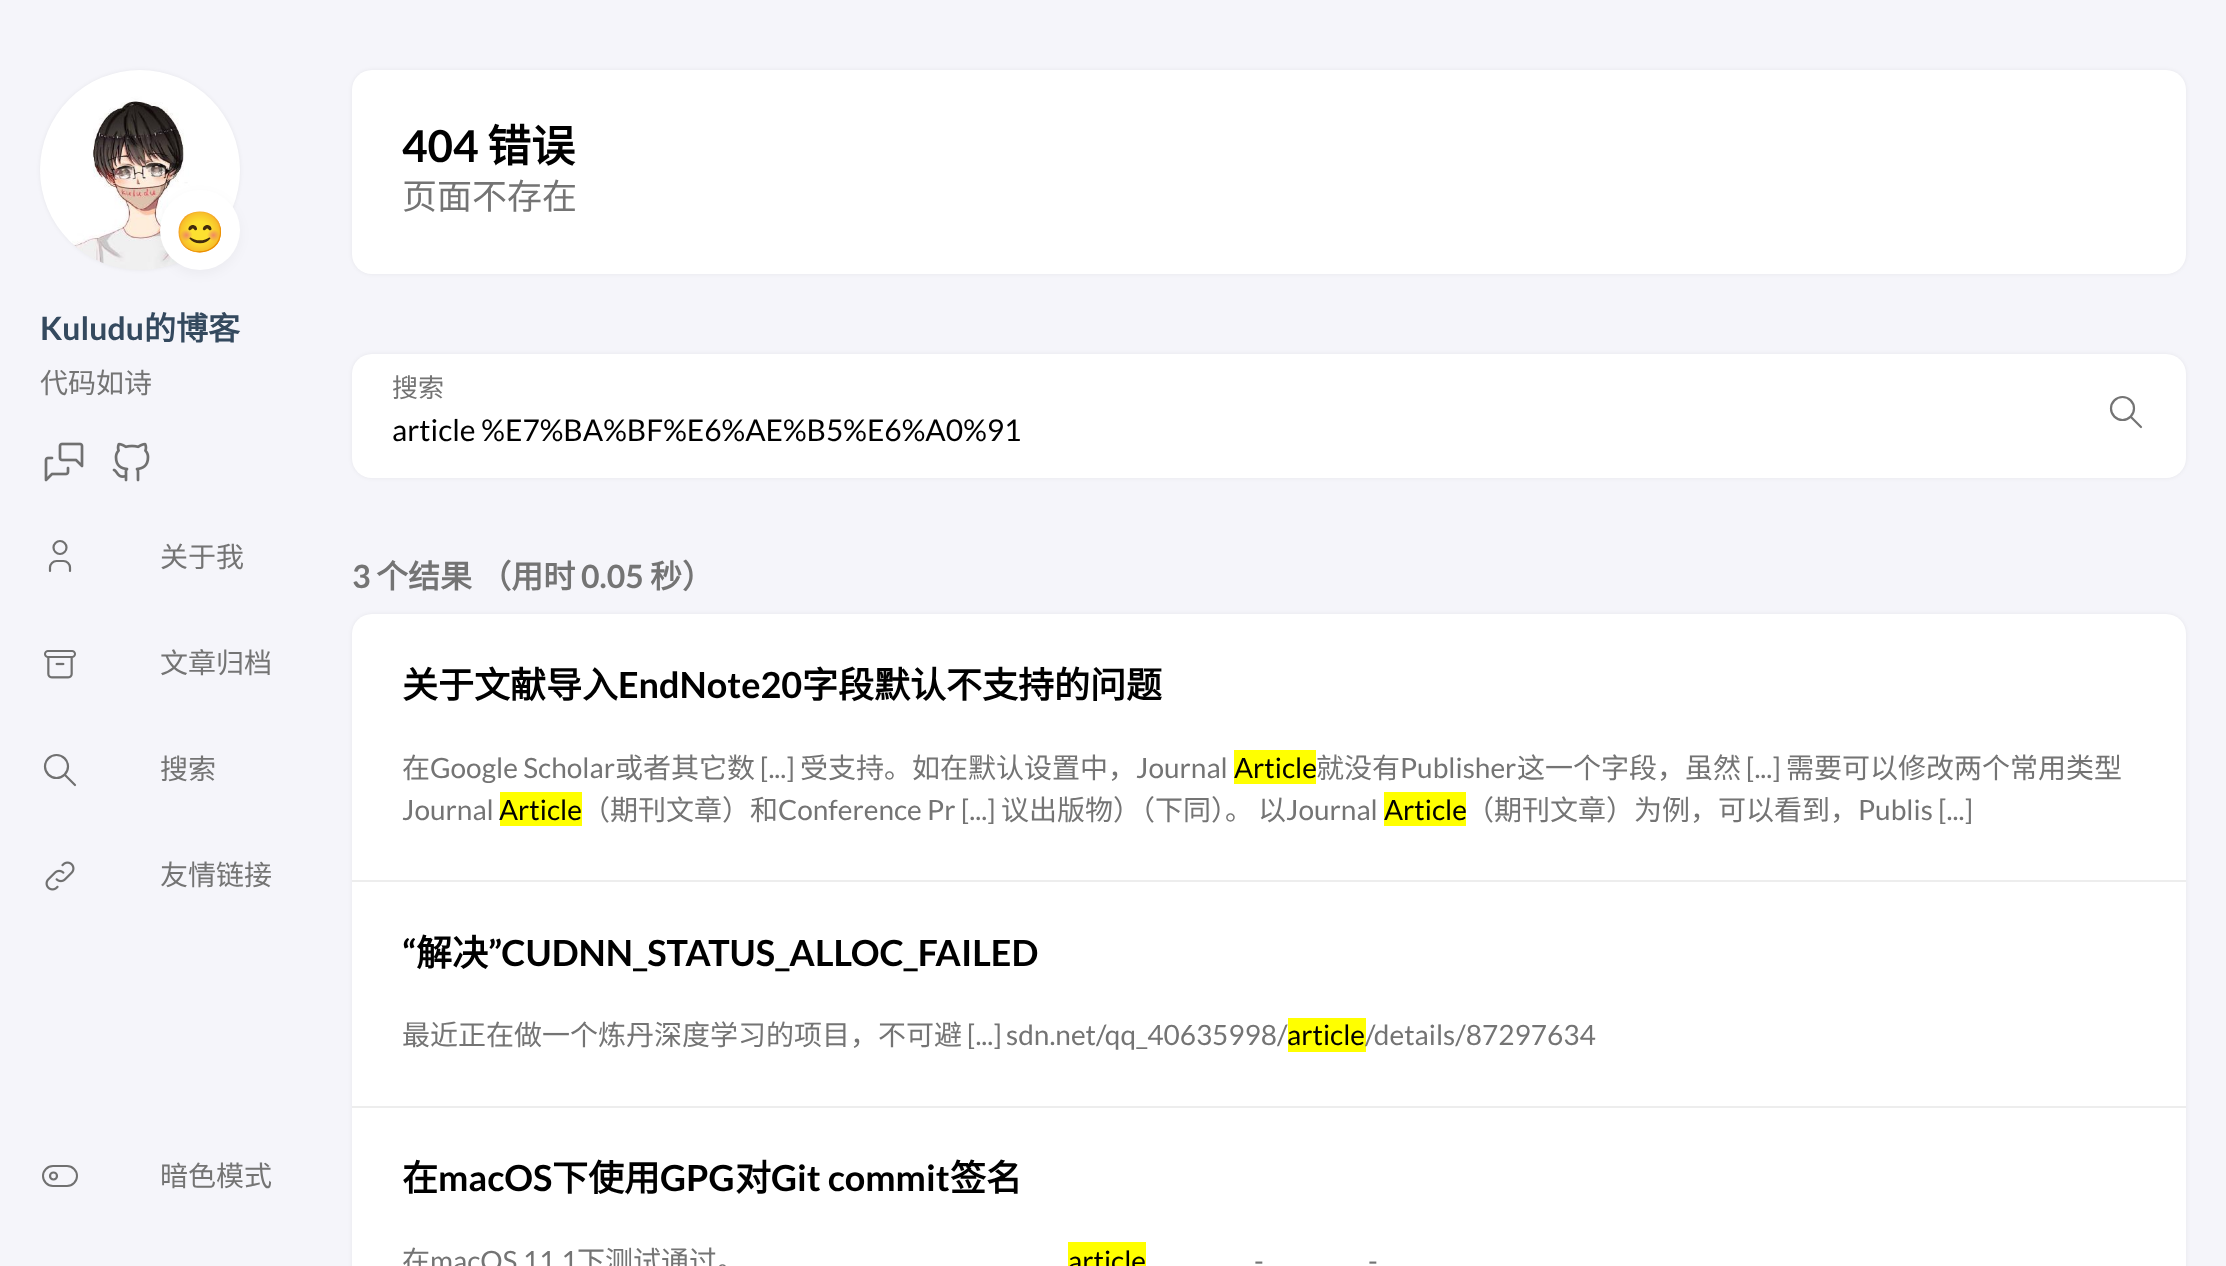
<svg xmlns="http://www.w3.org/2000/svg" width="2226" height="1266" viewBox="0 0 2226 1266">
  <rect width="100%" height="100%" fill="rgb(245,245,250)"/>
  <rect x="40" y="70" width="200" height="200" rx="100" fill="rgba(0,0,0,0.06)" filter="blur(2px)"/>
  <image x="40" y="70" width="200" height="200" href="pic1.png"/>
  <rect x="160" y="194" width="80" height="80" rx="40" fill="rgba(0,0,0,0.04)" filter="blur(6px)"/>
  <circle cx="200" cy="230" r="40" fill="rgb(255,255,255)"/>
  <text x="175" y="246" font-family="Noto Color Emoji" font-size="40" fill="rgb(0,0,0)">😊</text>
  <text x="40" y="340" font-family="Lato" font-size="32" font-weight="bold" fill="rgb(52,73,94)">Kuludu</text>
  <text x="144" y="340" font-family="Noto Sans CJK SC" font-size="32" font-weight="bold" fill="rgb(52,73,94)">的博客</text>
  <text x="40" y="393" font-family="Noto Sans CJK SC" font-size="28" fill="rgb(116,116,116)">代码如诗</text>
  <image x="44" y="442" width="40" height="40" href="pic2.png"/>
  <image x="112" y="442" width="38" height="40" href="pic3.png"/>
  <circle cx="60" cy="547.5" r="6.5" fill="none" stroke="rgb(112,112,112)" stroke-width="2.2"/>
  <path d="M50 571V567.5C50 564 53 561 56.5 561H63.5C67 561 70 564 70 567.5V571" fill="none" stroke="rgb(112,112,112)" stroke-width="2.2" stroke-linecap="round" stroke-linejoin="round"/>
  <text x="160" y="567" font-family="Noto Sans CJK SC" font-size="28" fill="rgb(116,116,116)">关于我</text>
  <image x="44" y="650" width="32" height="29" href="pic4.png"/>
  <text x="160" y="673" font-family="Noto Sans CJK SC" font-size="28" fill="rgb(116,116,116)">文章归档</text>
  <circle cx="56.5" cy="766.5" r="11.5" fill="none" stroke="rgb(112,112,112)" stroke-width="2.2"/>
  <path d="M75 785L65 775" fill="none" stroke="rgb(112,112,112)" stroke-width="2.2" stroke-linecap="round" stroke-linejoin="round"/>
  <text x="160" y="779" font-family="Noto Sans CJK SC" font-size="28" fill="rgb(116,116,116)">搜索</text>
  <image x="45" y="861" width="30" height="30" href="pic5.png"/>
  <text x="160" y="885" font-family="Noto Sans CJK SC" font-size="28" fill="rgb(116,116,116)">友情链接</text>
  <circle cx="53.5" cy="1176" r="3.5" fill="none" stroke="rgb(112,112,112)" stroke-width="2.2"/>
  <rect x="43" y="1166" width="34" height="20" rx="10" fill="none" stroke="rgb(112,112,112)" stroke-width="2"/>
  <text x="160" y="1186" font-family="Noto Sans CJK SC" font-size="28" fill="rgb(116,116,116)">暗色模式</text>
  <rect x="352" y="70" width="1834" height="204" rx="20" fill="rgba(0,0,0,0.06)" filter="blur(2px)"/>
  <rect x="352" y="70" width="1834" height="204" rx="20" fill="rgb(255,255,255)"/>
  <text x="402" y="162" font-family="Lato" font-size="44" font-weight="bold" fill="rgb(0,0,0)">404</text>
  <text x="487" y="162" font-family="Noto Sans CJK SC" font-size="44" font-weight="bold" fill="rgb(0,0,0)">错误</text>
  <text x="402" y="209" font-family="Noto Sans CJK SC" font-size="35" fill="rgb(116,116,116)">页面不存在</text>
  <rect x="352" y="354" width="1834" height="124" rx="20" fill="rgba(0,0,0,0.06)" filter="blur(2px)"/>
  <rect x="352" y="354" width="1834" height="124" rx="20" fill="rgb(255,255,255)"/>
  <text x="392" y="397" font-family="Noto Sans CJK SC" font-size="26" fill="rgb(116,116,116)">搜索</text>
  <text x="392" y="441" font-family="Lato" font-size="30" fill="rgb(0,0,0)">article %E7%BA%BF%E6%AE%B5%E6%A0%91</text>
  <circle cx="2122.5" cy="408.5" r="11.5" fill="none" stroke="rgb(116,116,116)" stroke-width="2.2"/>
  <path d="M2141 427L2131 417" fill="none" stroke="rgb(116,116,116)" stroke-width="2.2" stroke-linecap="round" stroke-linejoin="round"/>
  <text x="352" y="588" font-family="Lato" font-size="32" font-weight="bold" fill="rgb(116,116,116)">3</text>
  <text x="376" y="588" font-family="Noto Sans CJK SC" font-size="32" font-weight="bold" fill="rgb(116,116,116)">个结果 （用时</text>
  <text x="581" y="588" font-family="Lato" font-size="32" font-weight="bold" fill="rgb(116,116,116)">0.05</text>
  <text x="650" y="588" font-family="Noto Sans CJK SC" font-size="32" font-weight="bold" fill="rgb(116,116,116)">秒）</text>
  <rect x="352" y="614" width="1834" height="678" rx="20" fill="rgba(0,0,0,0.06)" filter="blur(2px)"/>
  <rect x="352" y="614" width="1834" height="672" rx="20" fill="rgb(255,255,255)"/>
  <rect x="352" y="880" width="1834" height="2" fill="rgb(237,237,237)"/>
  <text x="402" y="698" font-family="Noto Sans CJK SC" font-size="36" font-weight="bold" fill="rgb(0,0,0)">关于文献导入</text>
  <text x="618" y="698" font-family="Lato" font-size="36" font-weight="bold" fill="rgb(0,0,0)">EndNote20</text>
  <text x="802" y="698" font-family="Noto Sans CJK SC" font-size="36" font-weight="bold" fill="rgb(0,0,0)">字段默认不支持的问题</text>
  <text x="402" y="778" font-family="Noto Sans CJK SC" font-size="28" fill="rgb(116,116,116)">在</text>
  <text x="430" y="778" font-family="Lato" font-size="28" fill="rgb(116,116,116)">Google Scholar</text>
  <text x="615" y="778" font-family="Noto Sans CJK SC" font-size="28" fill="rgb(116,116,116)">或者其它数</text>
  <text x="760" y="778" font-family="Lato" font-size="28" fill="rgb(116,116,116)">[...]</text>
  <text x="800" y="778" font-family="Noto Sans CJK SC" font-size="28" fill="rgb(116,116,116)">受支持。如在默认设置中，</text>
  <text x="1136" y="778" font-family="Lato" font-size="28" fill="rgb(116,116,116)">Journal</text>
  <rect x="1234" y="750" width="82" height="34" fill="rgb(255,255,0)"/>
  <text x="1234" y="778" font-family="Lato" font-size="28" fill="rgb(0,0,0)">Article</text>
  <text x="1316" y="778" font-family="Noto Sans CJK SC" font-size="28" fill="rgb(116,116,116)">就没有</text>
  <text x="1400" y="778" font-family="Lato" font-size="28" fill="rgb(116,116,116)">Publisher</text>
  <text x="1517" y="778" font-family="Noto Sans CJK SC" font-size="28" fill="rgb(116,116,116)">这一个字段，虽然</text>
  <text x="1746" y="778" font-family="Lato" font-size="28" fill="rgb(116,116,116)">[...]</text>
  <text x="1786" y="778" font-family="Noto Sans CJK SC" font-size="28" fill="rgb(116,116,116)">需要可以修改两个常用类型</text>
  <text x="402" y="820" font-family="Lato" font-size="28" fill="rgb(116,116,116)">Journal</text>
  <rect x="500" y="792" width="82" height="34" fill="rgb(255,255,0)"/>
  <text x="499" y="820" font-family="Lato" font-size="28" fill="rgb(0,0,0)">Article</text>
  <text x="582" y="820" font-family="Noto Sans CJK SC" font-size="28" fill="rgb(116,116,116)">（期刊文章）和</text>
  <text x="778" y="820" font-family="Lato" font-size="28" fill="rgb(116,116,116)">Conference Pr [...]</text>
  <g font-family="Noto Sans CJK SC" font-size="28" fill="rgb(116,116,116)">
    <text x="1001" y="820">议出版物）（下同）。</text>
    <text x="1258" y="820">以</text>
  </g>
  <text x="1286" y="820" font-family="Lato" font-size="28" fill="rgb(116,116,116)">Journal</text>
  <rect x="1384" y="792" width="82" height="34" fill="rgb(255,255,0)"/>
  <text x="1384" y="820" font-family="Lato" font-size="28" fill="rgb(0,0,0)">Article</text>
  <text x="1466" y="820" font-family="Noto Sans CJK SC" font-size="28" fill="rgb(116,116,116)">（期刊文章）为例，可以看到，</text>
  <text x="1858" y="820" font-family="Lato" font-size="28" fill="rgb(116,116,116)">Publis [...]</text>
  <rect x="352" y="1106" width="1834" height="2" fill="rgb(237,237,237)"/>
  <text x="402" y="966" font-family="Lato" font-size="36" font-weight="bold" fill="rgb(0,0,0)">“</text>
  <text x="416" y="966" font-family="Noto Sans CJK SC" font-size="36" font-weight="bold" fill="rgb(0,0,0)">解决</text>
  <text x="488" y="966" font-family="Lato" font-size="36" font-weight="bold" fill="rgb(0,0,0)">”CUDNN_STATUS_ALLOC_FAILED</text>
  <text x="402" y="1045" font-family="Noto Sans CJK SC" font-size="28" fill="rgb(116,116,116)">最近正在做一个炼丹深度学习的项目，不可避</text>
  <text x="967" y="1045" word-spacing="-1" font-family="Lato" font-size="28" fill="rgb(116,116,116)">[...] sdn.net/qq_40635998/</text>
  <rect x="1288" y="1018" width="78" height="34" fill="rgb(255,255,0)"/>
  <text x="1287" y="1045" font-family="Lato" font-size="28" fill="rgb(0,0,0)">article</text>
  <text x="1365" y="1045" font-family="Lato" font-size="28" fill="rgb(116,116,116)">/details/87297634</text>
  <text x="402" y="1191" font-family="Noto Sans CJK SC" font-size="36" font-weight="bold" fill="rgb(0,0,0)">在</text>
  <text x="438" y="1191" font-family="Lato" font-size="36" font-weight="bold" fill="rgb(0,0,0)">macOS</text>
  <text x="552" y="1191" font-family="Noto Sans CJK SC" font-size="36" font-weight="bold" fill="rgb(0,0,0)">下使用</text>
  <text x="660" y="1191" font-family="Lato" font-size="36" font-weight="bold" fill="rgb(0,0,0)">GPG</text>
  <text x="735" y="1191" font-family="Noto Sans CJK SC" font-size="36" font-weight="bold" fill="rgb(0,0,0)">对</text>
  <text x="771" y="1191" font-family="Lato" font-size="36" font-weight="bold" fill="rgb(0,0,0)">Git commit</text>
  <text x="950" y="1191" font-family="Noto Sans CJK SC" font-size="36" font-weight="bold" fill="rgb(0,0,0)">签名</text>
  <text x="402" y="1271" font-family="Noto Sans CJK SC" font-size="28" fill="rgb(116,116,116)">在</text>
  <text x="430" y="1271" font-family="Lato" font-size="28" fill="rgb(116,116,116)">macOS 11.1</text>
  <text x="577" y="1271" font-family="Noto Sans CJK SC" font-size="28" fill="rgb(116,116,116)">下测试通过。</text>
  <rect x="1068" y="1242" width="78" height="24" fill="rgb(255,255,0)"/>
  <text x="1068" y="1271" font-family="Lato" font-size="28" fill="rgb(0,0,0)">article</text>
  <g font-family="Lato" font-size="28" fill="rgb(116,116,116)">
    <text x="1254" y="1271">-</text>
    <text x="1368" y="1271">-</text>
  </g>
</svg>
